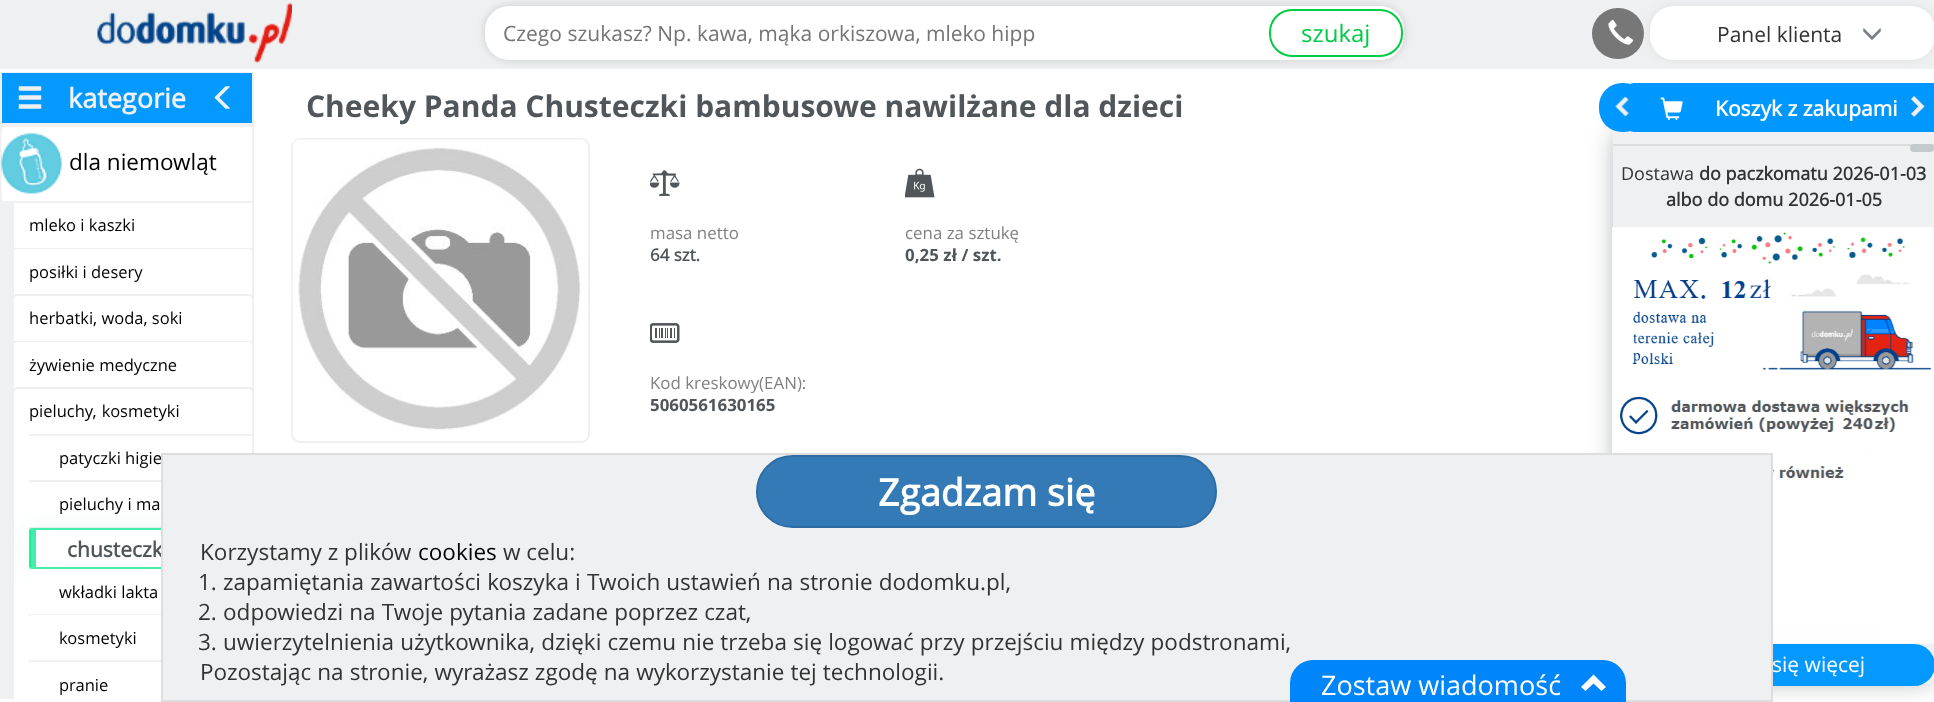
<svg xmlns="http://www.w3.org/2000/svg" width="1934" height="702" viewBox="0 0 1934 702">
  <defs>
    <clipPath id="clip1"><rect x="0" y="72" width="254" height="627"/></clipPath>
  </defs>
  <rect width="100%" height="100%" fill="rgb(255,255,255)"/>
  <rect x="0" y="0" width="1934" height="69" fill="rgb(239,240,241)"/>
  <image x="97" y="3" width="195" height="60" href="pic1.png"/>
  <rect x="485" y="6" width="919" height="54" rx="24" fill="rgba(80,86,89,0.24)" filter="blur(4.5px)"/>
  <rect x="485" y="6" width="919" height="54" rx="24" fill="rgb(255,255,255)"/>
  <text x="503" y="41" font-family="Open Sans" font-size="21" fill="rgb(117,117,117)">Czego szukasz? Np. kawa, mąka orkiszowa, mleko hipp</text>
  <rect x="1270" y="10" width="132" height="46" rx="22" fill="none" stroke="rgb(0,203,68)" stroke-width="2"/>
  <text x="1301" y="42" font-family="Open Sans" font-size="24" fill="rgb(0,203,68)">szukaj</text>
  <rect x="1592" y="8" width="52" height="51" rx="25.5" fill="rgb(119,119,119)"/>
  <image x="1608" y="19" width="26" height="26" href="pic2.png"/>
  <rect x="1650" y="6" width="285" height="54" rx="24" fill="rgb(223,223,223)" filter="blur(4.5px)"/>
  <rect x="1650" y="6" width="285" height="54" rx="24" fill="rgb(255,255,255)"/>
  <text x="1717" y="42" font-family="Open Sans" font-size="21" fill="rgb(51,51,51)">Panel klienta</text>
  <image x="1863" y="28" width="18" height="12" href="pic3.png"/>
  <rect x="0" y="125" width="254" height="574" fill="rgb(239,240,241)"/>
  <rect x="2" y="73" width="250" height="50" fill="rgb(3,153,255)"/>
  <g clip-path="url(#clip1)">
    <rect x="1" y="72" width="252" height="52" fill="none" stroke="rgb(239,240,241)" stroke-width="2"/>
  </g>
  <image x="18" y="86" width="24" height="23" href="pic4.png"/>
  <text x="68" y="108" font-family="Open Sans" font-size="27" font-weight="bold" fill="rgb(239,240,241)">kategorie</text>
  <image x="214" y="86" width="16" height="23" href="pic5.png"/>
  <rect x="2" y="127" width="250" height="74" fill="rgb(255,255,255)"/>
  <image x="1" y="133" width="61" height="61" href="pic6.png"/>
  <text x="69" y="170" font-family="Open Sans" font-size="22.5" fill="rgb(0,0,0)">dla niemowląt</text>
  <rect x="14" y="201" width="238" height="48" rx="3" fill="rgb(255,255,255)"/>
  <rect x="15" y="201" width="236" height="2" fill="rgb(239,240,241)"/>
  <rect x="15" y="248" width="236" height="1" fill="rgb(239,240,241)"/>
  <text x="29" y="231" font-family="Open Sans" font-size="16.5" fill="rgb(0,0,0)">mleko i kaszki</text>
  <rect x="14" y="249" width="238" height="47" rx="3" fill="rgb(255,255,255)"/>
  <rect x="15" y="294" width="236" height="2" fill="rgb(239,240,241)"/>
  <text x="29" y="278" font-family="Open Sans" font-size="16.5" fill="rgb(0,0,0)">posiłki i desery</text>
  <rect x="14" y="296" width="238" height="46" rx="3" fill="rgb(255,255,255)"/>
  <rect x="15" y="341" width="236" height="1" fill="rgb(239,240,241)"/>
  <text x="29" y="324" font-family="Open Sans" font-size="16.5" fill="rgb(0,0,0)">herbatki, woda, soki</text>
  <rect x="14" y="342" width="238" height="47" rx="3" fill="rgb(255,255,255)"/>
  <rect x="15" y="387" width="236" height="2" fill="rgb(239,240,241)"/>
  <text x="29" y="371" font-family="Open Sans" font-size="16.5" fill="rgb(0,0,0)">żywienie medyczne</text>
  <path d="M17 389H249C250.5 389 252 390.5 252 392V699H14V392C14 390.5 15.5 389 17 389Z" fill="rgb(255,255,255)"/>
  <text x="29" y="417" word-spacing="1" font-family="Open Sans" font-size="16.5" fill="rgb(0,0,0)">pieluchy, kosmetyki</text>
  <rect x="29" y="434" width="223" height="231" fill="rgb(239,240,241)"/>
  <rect x="29" y="434" width="223" height="48" rx="3" fill="rgb(255,255,255)"/>
  <rect x="30" y="434" width="221" height="2" fill="rgb(239,240,241)"/>
  <rect x="30" y="480" width="131" height="2" fill="rgb(239,240,241)"/>
  <text x="59" y="464" font-family="Open Sans" font-size="16.5" fill="rgb(0,0,0)">patyczki higie</text>
  <rect x="29" y="482" width="223" height="46" rx="3" fill="rgb(255,255,255)"/>
  <rect x="30" y="527" width="131" height="1" fill="rgb(239,240,241)"/>
  <text x="59" y="510" font-family="Open Sans" font-size="16.5" fill="rgb(0,0,0)">pieluchy i ma</text>
  <rect x="29" y="528" width="223" height="41" rx="3" fill="rgba(40,193,135,0.1)" filter="blur(11px)"/>
  <rect x="29" y="528" width="223" height="41" rx="3" fill="rgb(255,255,255)"/>
  <rect x="30" y="529" width="221" height="39" rx="2" fill="none" stroke="rgba(0,230,142,0.73)" stroke-width="2"/>
  <rect x="30" y="530" width="6" height="37" fill="rgba(0,230,142,0.73)"/>
  <text x="67" y="557" font-family="Open Sans" font-size="21" font-weight="bold" fill="rgb(80,86,89)">chusteczk</text>
  <rect x="29" y="569" width="223" height="46" rx="3" fill="rgb(255,255,255)"/>
  <rect x="30" y="614" width="131" height="1" fill="rgb(239,240,241)"/>
  <text x="59" y="598" font-family="Open Sans" font-size="16.5" fill="rgb(0,0,0)">wkładki lakta</text>
  <rect x="29" y="615" width="223" height="47" rx="3" fill="rgb(255,255,255)"/>
  <rect x="30" y="660" width="131" height="2" fill="rgb(239,240,241)"/>
  <text x="59" y="644" font-family="Open Sans" font-size="16.5" fill="rgb(0,0,0)">kosmetyki</text>
  <path d="M32 662H249C250.5 662 252 663.5 252 665V699H29V665C29 663.5 30.5 662 32 662Z" fill="rgb(255,255,255)"/>
  <text x="59" y="691" font-family="Open Sans" font-size="16.5" fill="rgb(0,0,0)">pranie</text>
  <text x="306" y="117" font-family="'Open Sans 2'" font-size="30" font-weight="bold" fill="rgb(80,86,89)">Cheeky Panda Chusteczki bambusowe nawilżane dla dzieci</text>
  <rect x="292" y="139" width="297" height="303" rx="8" fill="none" stroke="rgb(239,240,241)" stroke-width="2"/>
  <image x="292" y="139" width="294" height="295" href="pic7.png"/>
  <image x="650" y="170" width="30" height="26" href="pic8.png"/>
  <text x="650" y="239" font-family="'Open Sans 2'" font-size="16.9" fill="rgb(129,129,129)">masa netto</text>
  <text x="650" y="261" font-family="Open Sans" font-size="16.9" font-weight="bold" fill="rgb(80,86,89)">64 szt.</text>
  <image x="905" y="168" width="30" height="30" href="pic9.png"/>
  <text x="905" y="239" font-family="'Open Sans 2'" font-size="16.9" fill="rgb(129,129,129)">cena za sztukę</text>
  <text x="905" y="261" font-family="'Open Sans 2'" font-size="16.9" font-weight="bold" fill="rgb(80,86,89)">0,25 zł / szt.</text>
  <image x="650" y="323" width="30" height="20" href="pic10.png"/>
  <text x="650" y="389" font-family="'Open Sans 2'" font-size="16.9" fill="rgb(129,129,129)">Kod kreskowy(EAN):</text>
  <text x="650" y="411" font-family="'Open Sans 2'" font-size="16.9" font-weight="bold" fill="rgb(80,86,89)">5060561630165</text>
  <rect x="1616" y="132" width="316" height="549" rx="6" fill="rgba(80,86,89,0.5)" filter="blur(13px)"/>
  <path d="M1613 129H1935V675C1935 680 1931 684 1926 684H1622C1617 684 1613 680 1613 675Z" fill="rgb(239,240,241)"/>
  <path d="M1636 83H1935V132H1636C1623.5 132 1613 121.5 1613 109V106C1613 93.5 1623.5 83 1636 83Z" fill="rgb(0,152,255)"/>
  <rect x="1599" y="83" width="48" height="49" rx="23" fill="rgb(0,152,255)"/>
  <image x="1615" y="96" width="14" height="20" href="pic11.png"/>
  <image x="1660" y="97" width="23" height="23" href="pic12.png"/>
  <text x="1715" y="116" font-family="Open Sans" font-size="21" font-weight="bold" fill="rgb(255,255,255)">Koszyk z zakupami</text>
  <image x="1911" y="96" width="14" height="21" href="pic13.png"/>
  <rect x="1613" y="144" width="321" height="2" fill="rgb(221,221,221)"/>
  <rect x="1910" y="144" width="24" height="8" rx="4" fill="rgb(194,202,204)"/>
  <text x="1621" y="180" font-family="Open Sans" font-size="18" fill="rgb(51,51,51)">Dostawa</text>
  <g font-family="Open Sans" font-size="18" font-weight="bold" fill="rgb(51,51,51)">
    <text x="1699" y="180">do paczkomatu 2026-01-03</text>
    <text x="1666" y="206">albo do domu 2026-01-05</text>
  </g>
  <image x="1612" y="227" width="322" height="417" href="pic14.png"/>
  <rect x="1613" y="644" width="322" height="42" rx="21" fill="rgb(3,153,255)"/>
  <text x="1772" y="672" font-family="Open Sans" font-size="21" fill="rgb(255,255,255)">się więcej</text>
  <rect x="162" y="454" width="1610" height="247" fill="rgb(239,240,241)" stroke="rgb(221,221,221)" stroke-width="2"/>
  <rect x="757" y="456" width="459" height="71" rx="35.5" fill="rgb(51,122,183)" stroke="rgb(46,109,164)" stroke-width="2"/>
  <text x="878" y="506" font-family="Open Sans" font-size="37.5" font-weight="bold" fill="rgb(255,255,255)">Zgadzam się</text>
  <text x="200" y="560" font-family="Open Sans" font-size="22.5" fill="rgb(51,51,51)">Korzystamy z plików</text>
  <text x="418" y="560" font-family="Open Sans" font-size="22.5" fill="rgb(0,0,0)">cookies</text>
  <g font-family="Open Sans" font-size="22.5" fill="rgb(51,51,51)">
    <text x="503" y="560">w celu:</text>
    <text x="198" y="590">1.</text>
    <text x="223" y="590" word-spacing="0.25">zapamiętania zawartości koszyka i Twoich ustawień na stronie dodomku.pl,</text>
    <text x="198" y="620">2.</text>
    <text x="223" y="620" word-spacing="0.25">odpowiedzi na Twoje pytania zadane poprzez czat,</text>
    <text x="198" y="650">3.</text>
    <text x="223" y="650" word-spacing="0.25">uwierzytelnienia użytkownika, dzięki czemu nie trzeba się logować przy przejściu między podstronami,</text>
    <text x="200" y="680" word-spacing="0.25">Pozostając na stronie, wyrażasz zgodę na wykorzystanie tej technologii.</text>
  </g>
  <path d="M1313 661H1603C1615 661 1625 671 1625 683V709H1291V683C1291 671 1301 661 1313 661Z" fill="rgb(0,134,250)" stroke="rgb(0,134,250)" stroke-width="2"/>
  <text x="1321" y="695" font-family="Open Sans" font-size="27" fill="rgb(255,255,255)">Zostaw wiadomość</text>
  <path d="M1606 687L1601.5 691L1593.5 683.5L1585.5 691L1581 687L1593.5 674.5Z" fill="rgb(255,255,255)"/>
</svg>
